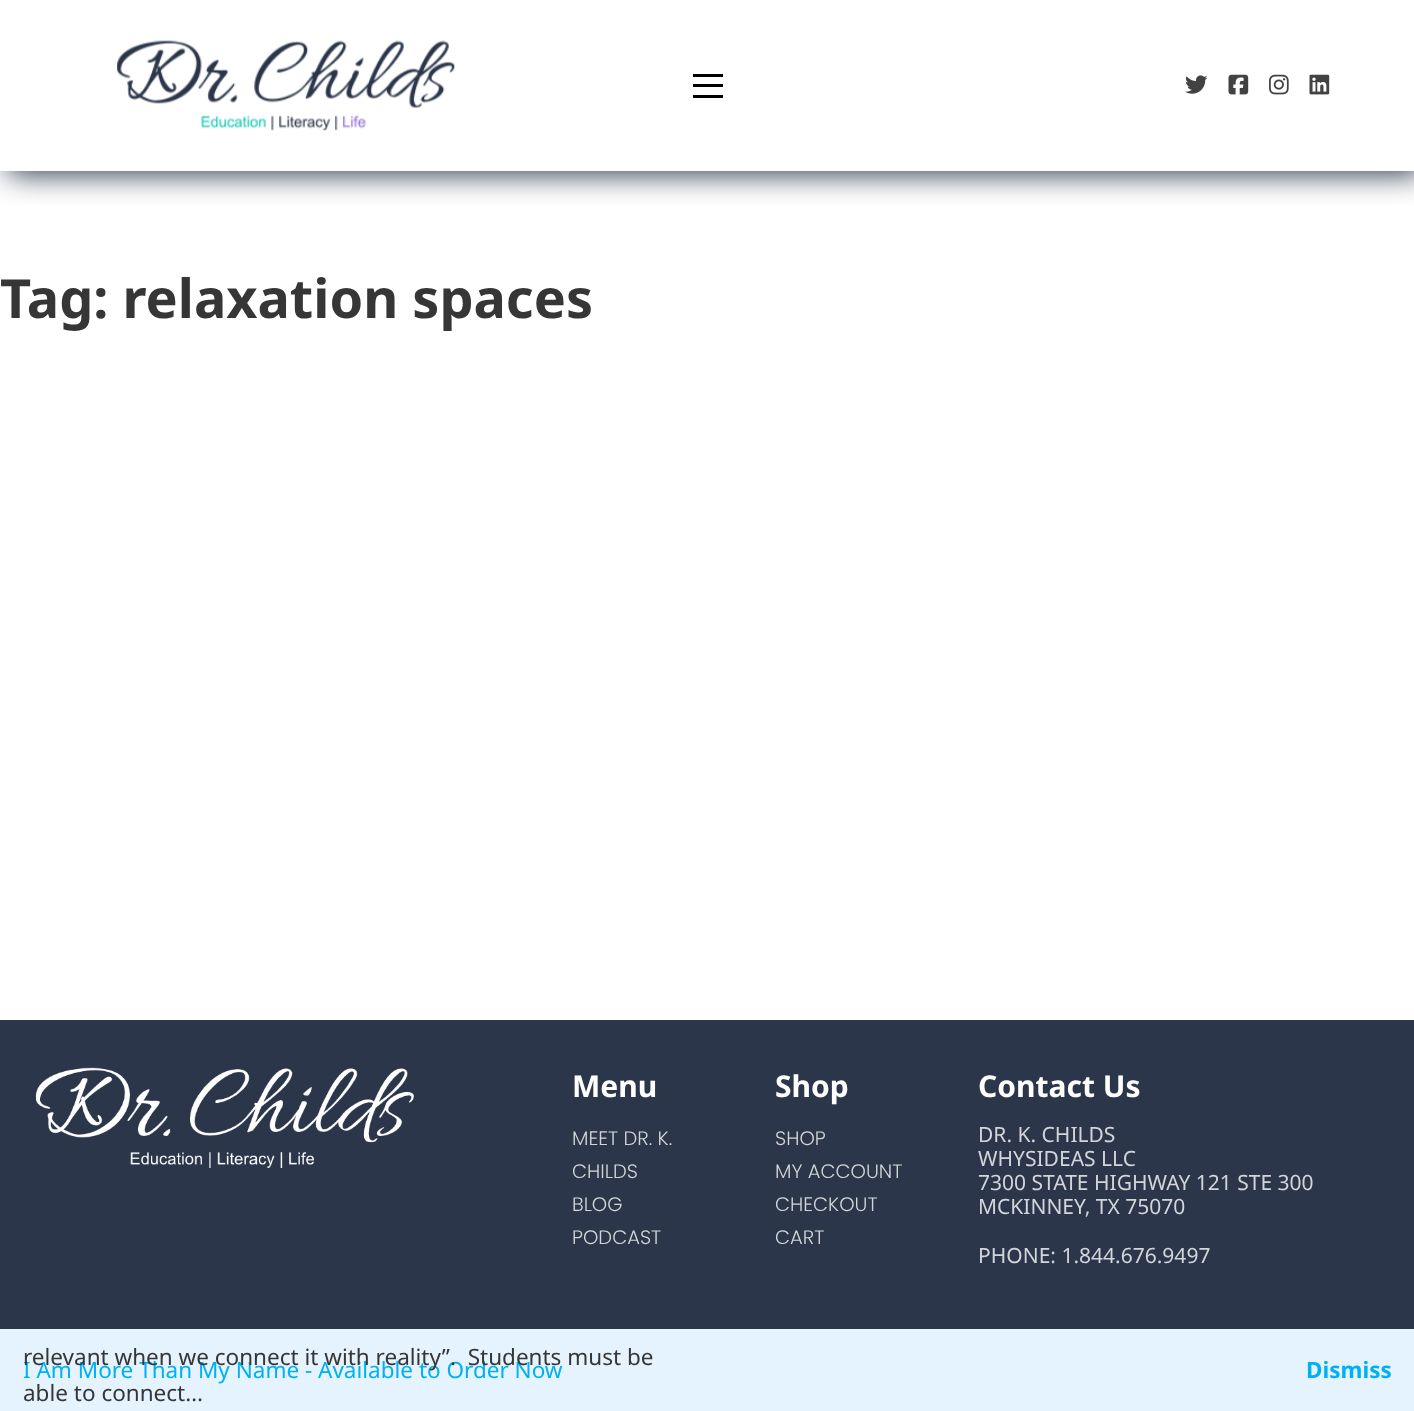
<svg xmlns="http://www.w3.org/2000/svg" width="1414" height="1411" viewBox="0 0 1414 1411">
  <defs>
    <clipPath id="clip1"><rect x="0" y="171" width="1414" height="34"/></clipPath>
  </defs>
  <rect width="100%" height="100%" fill="rgb(255,255,255)"/>
  <g clip-path="url(#clip1)">
    <rect x="8" y="3" width="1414" height="171" fill="rgb(43,54,74)" filter="blur(15px)"/>
  </g>
  <image x="117" y="40" width="338" height="91" href="pic1.png"/>
  <rect x="693" y="74" width="30" height="3" fill="rgb(0,0,0)"/>
  <rect x="693" y="84" width="30" height="3" fill="rgb(0,0,0)"/>
  <rect x="693" y="95" width="30" height="3" fill="rgb(0,0,0)"/>
  <image x="1185" y="75" width="23" height="19" href="pic2.png"/>
  <image x="1228" y="74" width="21" height="21" href="pic3.png"/>
  <image x="1269" y="74" width="20" height="21" href="pic4.png"/>
  <image x="1309" y="74" width="21" height="21" href="pic5.png"/>
  <text x="0" y="318" font-family="Noto Sans" font-size="54" font-weight="bold" fill="rgb(54,54,54)">Tag: relaxation spaces</text>
  <rect x="0" y="1020" width="1414" height="309" fill="rgb(43,54,74)"/>
  <image x="35" y="1067" width="379" height="101" href="pic6.png"/>
  <text x="572" y="1097" font-family="Noto Sans" font-size="30" font-weight="bold" fill="rgb(255,255,255)">Menu</text>
  <g font-family="Poppins" font-size="19.5" font-weight="300" fill="rgb(210,213,217)">
    <text>
      <tspan x="572" y="1145">MEET DR. K.</tspan>
      <tspan x="572" y="1178">CHILDS</tspan>
      <tspan x="572" y="1211">BLOG</tspan>
      <tspan x="572" y="1244">PODCAST</tspan>
    </text>
  </g>
  <text x="775" y="1097" font-family="Noto Sans" font-size="30" font-weight="bold" fill="rgb(255,255,255)">Shop</text>
  <g font-family="Poppins" font-size="19.5" font-weight="300" fill="rgb(210,213,217)">
    <text>
      <tspan x="775" y="1145">SHOP</tspan>
      <tspan x="775" y="1178">MY ACCOUNT</tspan>
      <tspan x="775" y="1211">CHECKOUT</tspan>
      <tspan x="775" y="1244">CART</tspan>
    </text>
  </g>
  <text x="978" y="1097" font-family="Noto Sans" font-size="30" font-weight="bold" fill="rgb(255,255,255)">Contact Us</text>
  <g font-family="Noto Sans" font-size="21" fill="rgb(210,213,217)">
    <text>
      <tspan x="978" y="1142">DR. K. CHILDS</tspan>
      <tspan x="978" y="1166">WHYSIDEAS LLC</tspan>
      <tspan x="978" y="1190">7300 STATE HIGHWAY 121 STE 300</tspan>
      <tspan x="978" y="1214">MCKINNEY, TX 75070</tspan>
    </text>
    <text x="978" y="1263">PHONE: 1.844.676.9497</text>
  </g>
  <rect x="0" y="1329" width="1414" height="82" fill="rgb(229,243,255)"/>
  <text x="23" y="1378" font-family="Noto Sans" font-size="22.5" fill="rgb(0,176,244)">I Am More Than My Name - Available to Order Now</text>
  <g font-family="Noto Sans" font-size="22.5" fill="rgb(54,54,54)">
    <text xml:space="preserve"><tspan x="23" y="1365">relevant when we connect it with reality”.  Students must be</tspan><tspan x="23" y="1401">able to connect…</tspan></text>
  </g>
  <text x="1306" y="1378" font-family="Noto Sans" font-size="22.5" font-weight="bold" fill="rgb(0,176,244)">Dismiss</text>
</svg>
